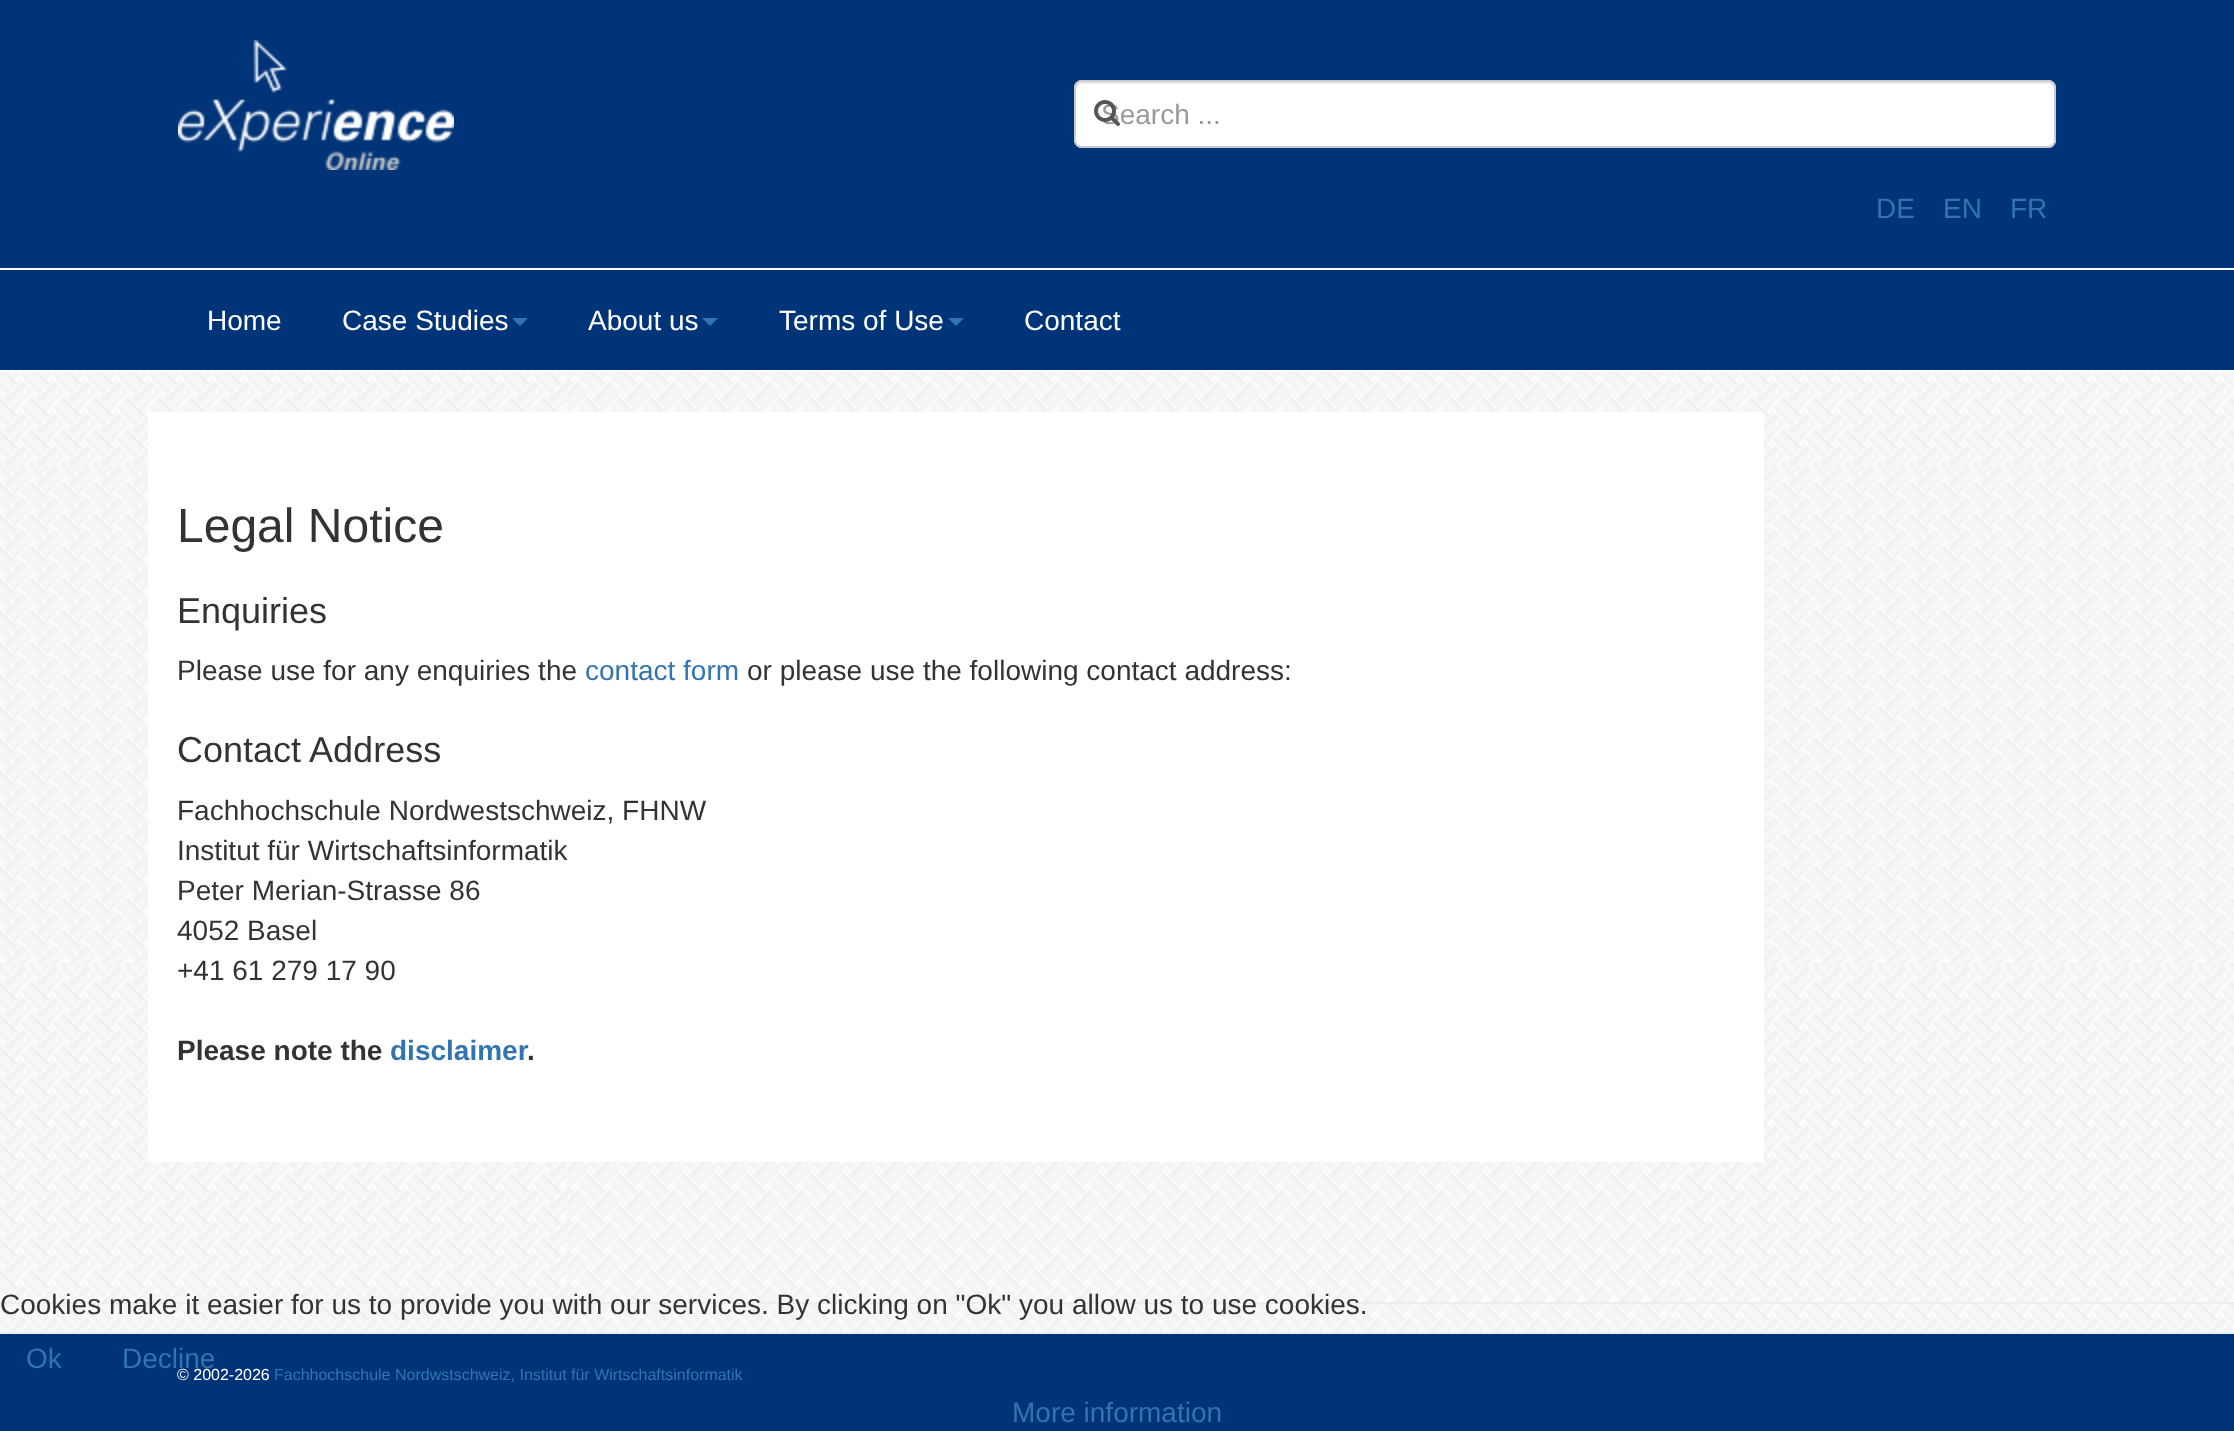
<svg xmlns="http://www.w3.org/2000/svg" width="2234" height="1431" viewBox="0 0 2234 1431">
  <rect width="100%" height="100%" fill="rgb(255,255,255)"/>
  <image x="0" y="372" width="2234" height="960" href="pic1.png"/>
  <rect x="0" y="0" width="2234" height="268" fill="rgb(0,52,121)"/>
  <image x="178" y="40" width="276" height="130" href="pic2.png"/>
  <rect x="1074" y="80" width="982" height="68" rx="8" fill="rgb(255,255,255)"/>
  <path d="M1082 84H2048C2051 84 2054 87 2054 90V88C2054 85 2051 82 2048 82H1082C1079 82 1076 85 1076 88V90C1076 87 1079 84 1082 84Z" fill="rgb(236,236,236)"/>
  <rect x="1075" y="81" width="980" height="66" rx="7" fill="none" stroke="rgb(204,204,204)" stroke-width="2"/>
  <text x="1101" y="124" font-family="Liberation Sans" font-size="28" fill="rgb(153,153,153)">Search ...</text>
  <image x="1094" y="100" width="26" height="26" href="pic3.png"/>
  <g font-family="Liberation Sans" font-size="28" fill="rgb(49,116,175)">
    <text x="1876" y="218">DE</text>
    <text x="1943" y="218">EN</text>
    <text x="2010" y="218">FR</text>
  </g>
  <rect x="0" y="270" width="2234" height="100" fill="rgb(0,52,121)"/>
  <g font-family="Liberation Sans" font-size="28" fill="rgb(255,255,255)">
    <text x="207" y="330">Home</text>
    <text x="342" y="330">Case Studies</text>
  </g>
  <path d="M512 318H528L520 326Z" fill="rgb(49,116,175)"/>
  <text x="588" y="330" font-family="Liberation Sans" font-size="28" fill="rgb(255,255,255)">About us</text>
  <path d="M702 318H718L710 326Z" fill="rgb(49,116,175)"/>
  <text x="779" y="330" font-family="Liberation Sans" font-size="28" fill="rgb(255,255,255)">Terms of Use</text>
  <path d="M948 318H964L956 326Z" fill="rgb(49,116,175)"/>
  <text x="1024" y="330" font-family="Liberation Sans" font-size="28" fill="rgb(255,255,255)">Contact</text>
  <rect x="148" y="412" width="1616" height="750" fill="rgb(255,255,255)"/>
  <text x="177" y="542" font-family="Liberation Sans" font-size="48" fill="rgb(51,51,51)">Legal Notice</text>
  <text x="177" y="623" font-family="Liberation Sans" font-size="36" fill="rgb(51,51,51)">Enquiries</text>
  <text x="177" y="680" font-family="Liberation Sans" font-size="28" fill="rgb(51,51,51)">Please use for any enquiries the</text>
  <text x="585" y="680" font-family="Liberation Sans" font-size="28" fill="rgb(49,116,175)">contact form</text>
  <text x="747" y="680" font-family="Liberation Sans" font-size="28" fill="rgb(51,51,51)">or please use the following contact address:</text>
  <text x="177" y="762" font-family="Liberation Sans" font-size="36" fill="rgb(51,51,51)">Contact Address</text>
  <g font-family="Liberation Sans" font-size="28" fill="rgb(51,51,51)">
    <text>
      <tspan x="177" y="820">Fachhochschule Nordwestschweiz, FHNW</tspan>
      <tspan x="177" y="860">Institut für Wirtschaftsinformatik</tspan>
      <tspan x="177" y="900">Peter Merian-Strasse 86</tspan>
      <tspan x="177" y="940">4052 Basel</tspan>
      <tspan x="177" y="980">+41 61 279 17 90</tspan>
    </text>
  </g>
  <text x="177" y="1060" font-family="Liberation Sans" font-size="28" font-weight="bold" fill="rgb(51,51,51)">Please note the</text>
  <text x="390" y="1060" font-family="Liberation Sans" font-size="28" font-weight="bold" fill="rgb(49,116,175)">disclaimer</text>
  <text x="527" y="1060" font-family="Liberation Sans" font-size="28" font-weight="bold" fill="rgb(51,51,51)">.</text>
  <rect x="0" y="1302" width="2234" height="2" fill="rgb(238,238,238)"/>
  <rect x="0" y="1334" width="2234" height="97" fill="rgb(0,52,121)"/>
  <rect x="0" y="1332" width="2234" height="2" fill="rgb(238,238,238)"/>
  <text x="177" y="1380" font-family="Liberation Sans" font-size="16" fill="rgb(255,255,255)">© 2002-2026</text>
  <text x="274" y="1380" font-family="Liberation Sans" font-size="16" fill="rgb(49,116,175)">Fachhochschule Nordwstschweiz, Institut für Wirtschaftsinformatik</text>
  <text x="0" y="1314" font-family="Liberation Sans" font-size="28" fill="rgb(51,51,51)">Cookies make it easier for us to provide you with our services. By clicking on "Ok" you allow us to use cookies.</text>
  <g font-family="Liberation Sans" font-size="28" fill="rgb(49,116,175)">
    <text x="26" y="1368">Ok</text>
    <text x="122" y="1368">Decline</text>
    <text x="1012" y="1422">More information</text>
  </g>
</svg>
